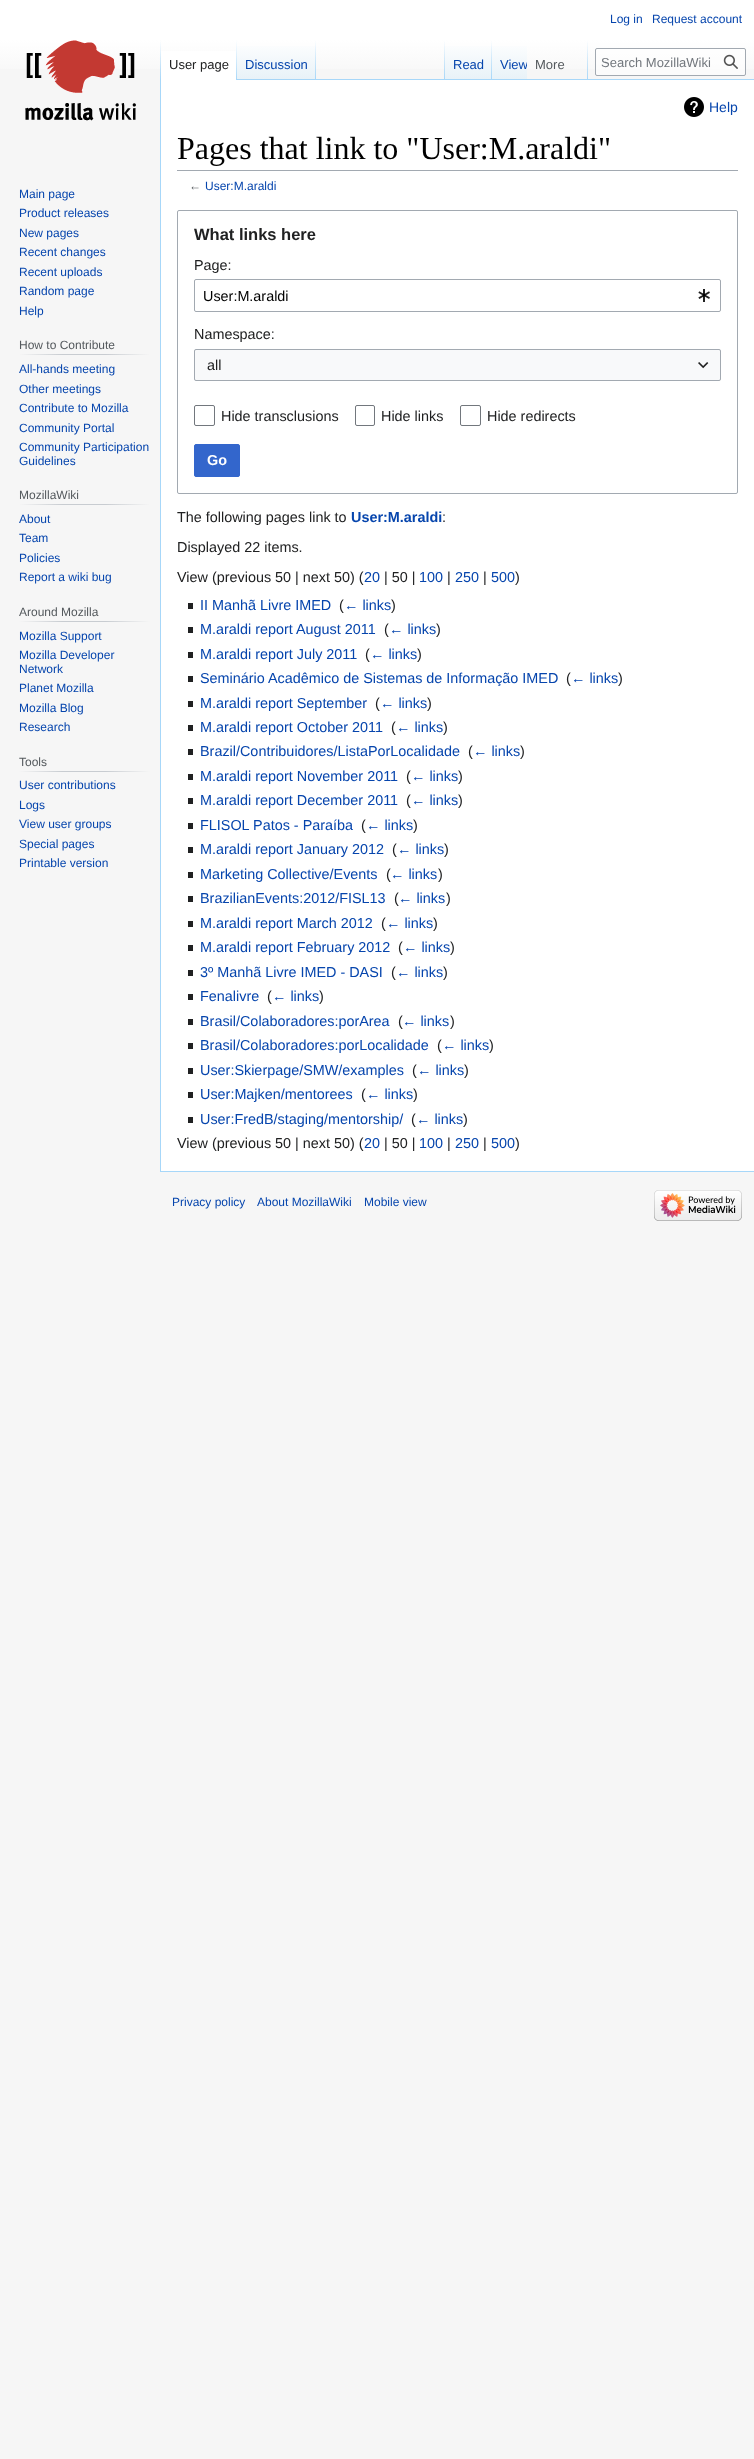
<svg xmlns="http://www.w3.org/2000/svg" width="754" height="2459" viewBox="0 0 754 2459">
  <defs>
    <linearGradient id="g1" gradientUnits="userSpaceOnUse" x1="377" y1="0" x2="377" y2="80"><stop offset="0.5" stop-color="rgb(255,255,255)"/><stop offset="1" stop-color="rgb(246,246,246)"/></linearGradient>
    <linearGradient id="g2" gradientUnits="userSpaceOnUse" x1="161" y1="40" x2="161" y2="80"><stop offset="0" stop-color="rgb(167,215,249)" stop-opacity="0"/><stop offset="1" stop-color="rgb(167,215,249)"/></linearGradient>
    <linearGradient id="g3" gradientUnits="userSpaceOnUse" x1="237" y1="40" x2="237" y2="80"><stop offset="0" stop-color="rgb(255,255,255)"/><stop offset="1" stop-color="rgb(167,215,249)"/></linearGradient>
    <linearGradient id="g4" gradientUnits="userSpaceOnUse" x1="277" y1="80" x2="277" y2="40"><stop offset="0" stop-color="rgb(119,193,246)"/><stop offset="0.03" stop-color="rgb(232,242,248)"/><stop offset="1" stop-color="rgb(255,255,255)"/></linearGradient>
    <linearGradient id="g5" gradientUnits="userSpaceOnUse" x1="316" y1="40" x2="316" y2="80"><stop offset="0" stop-color="rgb(167,215,249)" stop-opacity="0"/><stop offset="1" stop-color="rgb(167,215,249)"/></linearGradient>
    <linearGradient id="g6" gradientUnits="userSpaceOnUse" x1="445" y1="40" x2="445" y2="80"><stop offset="0" stop-color="rgb(167,215,249)" stop-opacity="0"/><stop offset="1" stop-color="rgb(167,215,249)"/></linearGradient>
    <linearGradient id="g7" gradientUnits="userSpaceOnUse" x1="469" y1="80" x2="469" y2="40"><stop offset="0" stop-color="rgb(119,193,246)"/><stop offset="0.03" stop-color="rgb(232,242,248)"/><stop offset="1" stop-color="rgb(255,255,255)"/></linearGradient>
    <linearGradient id="g8" gradientUnits="userSpaceOnUse" x1="492" y1="40" x2="492" y2="80"><stop offset="0" stop-color="rgb(167,215,249)" stop-opacity="0"/><stop offset="1" stop-color="rgb(167,215,249)"/></linearGradient>
    <linearGradient id="g9" gradientUnits="userSpaceOnUse" x1="510" y1="80" x2="510" y2="40"><stop offset="0" stop-color="rgb(119,193,246)"/><stop offset="0.03" stop-color="rgb(232,242,248)"/><stop offset="1" stop-color="rgb(255,255,255)"/></linearGradient>
    <clipPath id="clip1"><rect x="492" y="40" width="35" height="40"/></clipPath>
    <linearGradient id="g10" gradientUnits="userSpaceOnUse" x1="588" y1="40" x2="588" y2="80"><stop offset="0" stop-color="rgb(167,215,249)" stop-opacity="0"/><stop offset="1" stop-color="rgb(167,215,249)"/></linearGradient>
    <linearGradient id="g11" gradientUnits="userSpaceOnUse" x1="19" y1="355" x2="150" y2="355"><stop offset="0" stop-color="rgb(246,246,246)"/><stop offset="0.33" stop-color="rgb(200,204,209)"/><stop offset="0.66" stop-color="rgb(200,204,209)"/><stop offset="1" stop-color="rgb(246,246,246)"/></linearGradient>
    <linearGradient id="g12" gradientUnits="userSpaceOnUse" x1="19" y1="505" x2="150" y2="505"><stop offset="0" stop-color="rgb(246,246,246)"/><stop offset="0.33" stop-color="rgb(200,204,209)"/><stop offset="0.66" stop-color="rgb(200,204,209)"/><stop offset="1" stop-color="rgb(246,246,246)"/></linearGradient>
    <linearGradient id="g13" gradientUnits="userSpaceOnUse" x1="19" y1="622" x2="150" y2="622"><stop offset="0" stop-color="rgb(246,246,246)"/><stop offset="0.33" stop-color="rgb(200,204,209)"/><stop offset="0.66" stop-color="rgb(200,204,209)"/><stop offset="1" stop-color="rgb(246,246,246)"/></linearGradient>
    <linearGradient id="g14" gradientUnits="userSpaceOnUse" x1="19" y1="772" x2="150" y2="772"><stop offset="0" stop-color="rgb(246,246,246)"/><stop offset="0.33" stop-color="rgb(200,204,209)"/><stop offset="0.66" stop-color="rgb(200,204,209)"/><stop offset="1" stop-color="rgb(246,246,246)"/></linearGradient>
  </defs>
  <rect width="100%" height="100%" fill="rgb(246,246,246)"/>
  <rect x="0" y="0" width="754" height="69" fill="url(#g1)"/>
  <g font-family="Liberation Sans" font-size="12" fill="rgb(6,69,173)">
    <text x="610" y="23">Log in</text>
    <text x="652" y="23">Request account</text>
  </g>
  <rect x="160" y="1171" width="594" height="1" fill="rgb(167,215,249)"/>
  <rect x="160" y="79" width="1" height="1093" fill="rgb(167,215,249)"/>
  <rect x="160" y="40" width="1" height="40" fill="url(#g2)"/>
  <rect x="161" y="51" width="75" height="29" fill="rgb(255,255,255)"/>
  <rect x="236" y="40" width="1" height="40" fill="url(#g3)"/>
  <text x="169" y="69" font-family="Liberation Sans" font-size="13" fill="rgb(32,33,34)">User page</text>
  <rect x="237" y="46" width="79" height="34" fill="url(#g4)"/>
  <rect x="315" y="40" width="1" height="40" fill="url(#g5)"/>
  <text x="245" y="69" font-family="Liberation Sans" font-size="13" fill="rgb(6,69,173)">Discussion</text>
  <rect x="316" y="79" width="438" height="1" fill="rgb(167,215,249)"/>
  <rect x="444" y="40" width="1" height="40" fill="url(#g6)"/>
  <rect x="445" y="46" width="47" height="33" fill="url(#g7)"/>
  <rect x="491" y="40" width="1" height="40" fill="url(#g8)"/>
  <text x="453" y="69" font-family="Liberation Sans" font-size="13" fill="rgb(6,69,173)">Read</text>
  <rect x="492" y="46" width="35" height="33" fill="url(#g9)"/>
  <g clip-path="url(#clip1)">
    <text x="500" y="69" font-family="Liberation Sans" font-size="13" fill="rgb(6,69,173)">View</text>
  </g>
  <rect x="587" y="40" width="1" height="40" fill="url(#g10)"/>
  <text x="535" y="69" font-family="Liberation Sans" font-size="13" fill="rgb(84,89,93)">More</text>
  <rect x="595.5" y="48.5" width="150" height="27" rx="1.5" fill="rgba(255,255,255,0.5)" stroke="rgb(162,169,177)"/>
  <text x="601" y="67" font-family="Liberation Sans" font-size="13" fill="rgb(114,119,125)">Search MozillaWiki</text>
  <image x="723" y="54" width="15" height="15" href="pic1.png"/>
  <image x="25" y="40" width="111" height="81" href="pic2.png"/>
  <g font-family="Liberation Sans" font-size="12" fill="rgb(6,69,173)">
    <text>
      <tspan x="19" y="198">Main page</tspan>
      <tspan x="19" y="217">Product releases</tspan>
      <tspan x="19" y="237">New pages</tspan>
      <tspan x="19" y="256">Recent changes</tspan>
      <tspan x="19" y="276">Recent uploads</tspan>
      <tspan x="19" y="295">Random page</tspan>
      <tspan x="19" y="315">Help</tspan>
    </text>
  </g>
  <rect x="19" y="354" width="131" height="1" fill="url(#g11)"/>
  <text x="19" y="349" font-family="Liberation Sans" font-size="12" fill="rgb(84,89,93)">How to Contribute</text>
  <g font-family="Liberation Sans" font-size="12" fill="rgb(6,69,173)">
    <text>
      <tspan x="19" y="373">All-hands meeting</tspan>
      <tspan x="19" y="393">Other meetings</tspan>
      <tspan x="19" y="412">Contribute to Mozilla</tspan>
      <tspan x="19" y="432">Community Portal</tspan>
      <tspan x="19" y="451">Community Participation</tspan>
      <tspan x="19" y="465">Guidelines</tspan>
    </text>
  </g>
  <rect x="19" y="504" width="131" height="1" fill="url(#g12)"/>
  <text x="19" y="499" font-family="Liberation Sans" font-size="12" fill="rgb(84,89,93)">MozillaWiki</text>
  <g font-family="Liberation Sans" font-size="12" fill="rgb(6,69,173)">
    <text>
      <tspan x="19" y="523">About</tspan>
      <tspan x="19" y="542">Team</tspan>
      <tspan x="19" y="562">Policies</tspan>
      <tspan x="19" y="581">Report a wiki bug</tspan>
    </text>
  </g>
  <rect x="19" y="621" width="131" height="1" fill="url(#g13)"/>
  <text x="19" y="616" font-family="Liberation Sans" font-size="12" fill="rgb(84,89,93)">Around Mozilla</text>
  <g font-family="Liberation Sans" font-size="12" fill="rgb(6,69,173)">
    <text>
      <tspan x="19" y="640">Mozilla Support</tspan>
      <tspan x="19" y="659">Mozilla Developer</tspan>
      <tspan x="19" y="673">Network</tspan>
      <tspan x="19" y="692">Planet Mozilla</tspan>
      <tspan x="19" y="712">Mozilla Blog</tspan>
      <tspan x="19" y="731">Research</tspan>
    </text>
  </g>
  <rect x="19" y="771" width="131" height="1" fill="url(#g14)"/>
  <text x="19" y="766" font-family="Liberation Sans" font-size="12" fill="rgb(84,89,93)">Tools</text>
  <g font-family="Liberation Sans" font-size="12" fill="rgb(6,69,173)">
    <text>
      <tspan x="19" y="789">User contributions</tspan>
      <tspan x="19" y="809">Logs</tspan>
      <tspan x="19" y="828">View user groups</tspan>
      <tspan x="19" y="848">Special pages</tspan>
      <tspan x="19" y="867">Printable version</tspan>
    </text>
  </g>
  <rect x="161" y="80" width="593" height="1091" fill="rgb(255,255,255)"/>
  <image x="684" y="97" width="20" height="20" href="pic3.png"/>
  <text x="709" y="112" font-family="Liberation Sans" font-size="14" fill="rgb(6,69,173)">Help</text>
  <rect x="177" y="170" width="561" height="1" fill="rgb(162,169,177)"/>
  <text x="177" y="159" font-family="Liberation Serif" font-size="32" fill="rgb(0,0,0)">Pages that link to "User:M.araldi"</text>
  <text x="189" y="190" font-family="Liberation Sans" font-size="12" fill="rgb(84,89,93)">←</text>
  <text x="205" y="190" font-family="Liberation Sans" font-size="12" fill="rgb(6,69,173)">User:M.araldi</text>
  <rect x="177.5" y="210.5" width="560" height="283" rx="1.5" fill="none" stroke="rgb(162,169,177)"/>
  <text x="194" y="240" font-family="Liberation Sans" font-size="16.5" font-weight="bold" fill="rgb(32,33,34)">What links here</text>
  <text x="194" y="270" font-family="Liberation Sans" font-size="14.4" fill="rgb(32,33,34)">Page:</text>
  <rect x="194.5" y="279.5" width="526" height="32" rx="1.5" fill="none" stroke="rgb(162,169,177)"/>
  <text x="203" y="301" font-family="Liberation Sans" font-size="14.4" fill="rgb(0,0,0)">User:M.araldi</text>
  <image x="698" y="289" width="12" height="13" href="pic4.png"/>
  <text x="194" y="339" font-family="Liberation Sans" font-size="14.4" fill="rgb(32,33,34)">Namespace:</text>
  <rect x="194" y="349" width="527" height="32" fill="rgb(248,249,250)"/>
  <rect x="194.5" y="349.5" width="526" height="31" rx="1.5" fill="none" stroke="rgb(162,169,177)"/>
  <text x="207" y="370" font-family="Liberation Sans" font-size="14.4" fill="rgb(32,33,34)">all</text>
  <image x="698" y="362" width="11" height="7" href="pic5.png"/>
  <rect x="194.5" y="405.5" width="20" height="20" rx="1.5" fill="none" stroke="rgb(114,119,125)"/>
  <text x="221" y="421" font-family="Liberation Sans" font-size="14.4" fill="rgb(32,33,34)">Hide transclusions</text>
  <rect x="355.5" y="405.5" width="19" height="20" rx="1.5" fill="none" stroke="rgb(114,119,125)"/>
  <text x="381" y="421" font-family="Liberation Sans" font-size="14.4" fill="rgb(32,33,34)">Hide links</text>
  <rect x="460.5" y="405.5" width="20" height="20" rx="1.5" fill="none" stroke="rgb(114,119,125)"/>
  <text x="487" y="421" font-family="Liberation Sans" font-size="14.4" fill="rgb(32,33,34)">Hide redirects</text>
  <rect x="194.5" y="444.5" width="45" height="32" rx="1.5" fill="rgb(51,102,204)" stroke="rgb(51,102,204)"/>
  <text x="207" y="465" font-family="Liberation Sans" font-size="14.4" font-weight="bold" fill="rgb(255,255,255)">Go</text>
  <text x="177" y="522" font-family="Liberation Sans" font-size="14.4" fill="rgb(32,33,34)">The following pages link to</text>
  <text x="351" y="522" font-family="Liberation Sans" font-size="14.4" font-weight="bold" fill="rgb(6,69,173)">User:M.araldi</text>
  <g font-family="Liberation Sans" font-size="14.4" fill="rgb(32,33,34)">
    <text x="442" y="522">:</text>
    <text x="177" y="552">Displayed 22 items.</text>
    <text x="177" y="582">View (previous 50 | next 50) (</text>
  </g>
  <text x="364" y="582" font-family="Liberation Sans" font-size="14.4" fill="rgb(6,69,173)">20</text>
  <text x="384" y="582" font-family="Liberation Sans" font-size="14.4" fill="rgb(32,33,34)">| 50 |</text>
  <text x="419" y="582" font-family="Liberation Sans" font-size="14.4" fill="rgb(6,69,173)">100</text>
  <text x="447" y="582" font-family="Liberation Sans" font-size="14.4" fill="rgb(32,33,34)">|</text>
  <text x="455" y="582" font-family="Liberation Sans" font-size="14.4" fill="rgb(6,69,173)">250</text>
  <text x="483" y="582" font-family="Liberation Sans" font-size="14.4" fill="rgb(32,33,34)">|</text>
  <text x="491" y="582" font-family="Liberation Sans" font-size="14.4" fill="rgb(6,69,173)">500</text>
  <text x="515" y="582" font-family="Liberation Sans" font-size="14.4" fill="rgb(32,33,34)">)</text>
  <rect x="188" y="603" width="5" height="6" fill="rgb(32,33,34)"/>
  <text x="200" y="610" font-family="Liberation Sans" font-size="14.4" fill="rgb(6,69,173)">II Manhã Livre IMED</text>
  <text x="339" y="610" font-family="Liberation Sans" font-size="14.4" fill="rgb(32,33,34)">(</text>
  <text x="344" y="610" font-family="Liberation Sans" font-size="14.4" fill="rgb(6,69,173)">← links</text>
  <text x="391" y="610" font-family="Liberation Sans" font-size="14.4" fill="rgb(32,33,34)">)</text>
  <rect x="188" y="627" width="5" height="6" fill="rgb(32,33,34)"/>
  <text x="200" y="634" font-family="Liberation Sans" font-size="14.4" fill="rgb(6,69,173)">M.araldi report August 2011</text>
  <text x="384" y="634" font-family="Liberation Sans" font-size="14.4" fill="rgb(32,33,34)">(</text>
  <text x="389" y="634" font-family="Liberation Sans" font-size="14.4" fill="rgb(6,69,173)">← links</text>
  <text x="436" y="634" font-family="Liberation Sans" font-size="14.4" fill="rgb(32,33,34)">)</text>
  <rect x="188" y="652" width="5" height="6" fill="rgb(32,33,34)"/>
  <text x="200" y="659" font-family="Liberation Sans" font-size="14.4" fill="rgb(6,69,173)">M.araldi report July 2011</text>
  <text x="365" y="659" font-family="Liberation Sans" font-size="14.4" fill="rgb(32,33,34)">(</text>
  <text x="370" y="659" font-family="Liberation Sans" font-size="14.4" fill="rgb(6,69,173)">← links</text>
  <text x="417" y="659" font-family="Liberation Sans" font-size="14.4" fill="rgb(32,33,34)">)</text>
  <rect x="188" y="676" width="5" height="6" fill="rgb(32,33,34)"/>
  <text x="200" y="683" font-family="Liberation Sans" font-size="14.4" fill="rgb(6,69,173)">Seminário Acadêmico de Sistemas de Informação IMED</text>
  <text x="566" y="683" font-family="Liberation Sans" font-size="14.4" fill="rgb(32,33,34)">(</text>
  <text x="571" y="683" font-family="Liberation Sans" font-size="14.4" fill="rgb(6,69,173)">← links</text>
  <text x="618" y="683" font-family="Liberation Sans" font-size="14.4" fill="rgb(32,33,34)">)</text>
  <rect x="188" y="701" width="5" height="6" fill="rgb(32,33,34)"/>
  <text x="200" y="708" font-family="Liberation Sans" font-size="14.4" fill="rgb(6,69,173)">M.araldi report September</text>
  <text x="375" y="708" font-family="Liberation Sans" font-size="14.4" fill="rgb(32,33,34)">(</text>
  <text x="380" y="708" font-family="Liberation Sans" font-size="14.4" fill="rgb(6,69,173)">← links</text>
  <text x="427" y="708" font-family="Liberation Sans" font-size="14.4" fill="rgb(32,33,34)">)</text>
  <rect x="188" y="725" width="5" height="6" fill="rgb(32,33,34)"/>
  <text x="200" y="732" font-family="Liberation Sans" font-size="14.4" fill="rgb(6,69,173)">M.araldi report October 2011</text>
  <text x="391" y="732" font-family="Liberation Sans" font-size="14.4" fill="rgb(32,33,34)">(</text>
  <text x="396" y="732" font-family="Liberation Sans" font-size="14.4" fill="rgb(6,69,173)">← links</text>
  <text x="443" y="732" font-family="Liberation Sans" font-size="14.4" fill="rgb(32,33,34)">)</text>
  <rect x="188" y="749" width="5" height="6" fill="rgb(32,33,34)"/>
  <text x="200" y="756" font-family="Liberation Sans" font-size="14.4" fill="rgb(6,69,173)">Brazil/Contribuidores/ListaPorLocalidade</text>
  <text x="468" y="756" font-family="Liberation Sans" font-size="14.4" fill="rgb(32,33,34)">(</text>
  <text x="473" y="756" font-family="Liberation Sans" font-size="14.4" fill="rgb(6,69,173)">← links</text>
  <text x="520" y="756" font-family="Liberation Sans" font-size="14.4" fill="rgb(32,33,34)">)</text>
  <rect x="188" y="774" width="5" height="6" fill="rgb(32,33,34)"/>
  <text x="200" y="781" font-family="Liberation Sans" font-size="14.4" fill="rgb(6,69,173)">M.araldi report November 2011</text>
  <text x="406" y="781" font-family="Liberation Sans" font-size="14.4" fill="rgb(32,33,34)">(</text>
  <text x="411" y="781" font-family="Liberation Sans" font-size="14.4" fill="rgb(6,69,173)">← links</text>
  <text x="458" y="781" font-family="Liberation Sans" font-size="14.4" fill="rgb(32,33,34)">)</text>
  <rect x="188" y="798" width="5" height="6" fill="rgb(32,33,34)"/>
  <text x="200" y="805" font-family="Liberation Sans" font-size="14.4" fill="rgb(6,69,173)">M.araldi report December 2011</text>
  <text x="406" y="805" font-family="Liberation Sans" font-size="14.4" fill="rgb(32,33,34)">(</text>
  <text x="411" y="805" font-family="Liberation Sans" font-size="14.4" fill="rgb(6,69,173)">← links</text>
  <text x="458" y="805" font-family="Liberation Sans" font-size="14.4" fill="rgb(32,33,34)">)</text>
  <rect x="188" y="823" width="5" height="6" fill="rgb(32,33,34)"/>
  <text x="200" y="830" font-family="Liberation Sans" font-size="14.4" fill="rgb(6,69,173)">FLISOL Patos - Paraíba</text>
  <text x="361" y="830" font-family="Liberation Sans" font-size="14.4" fill="rgb(32,33,34)">(</text>
  <text x="366" y="830" font-family="Liberation Sans" font-size="14.4" fill="rgb(6,69,173)">← links</text>
  <text x="413" y="830" font-family="Liberation Sans" font-size="14.4" fill="rgb(32,33,34)">)</text>
  <rect x="188" y="847" width="5" height="6" fill="rgb(32,33,34)"/>
  <text x="200" y="854" font-family="Liberation Sans" font-size="14.4" fill="rgb(6,69,173)">M.araldi report January 2012</text>
  <text x="392" y="854" font-family="Liberation Sans" font-size="14.4" fill="rgb(32,33,34)">(</text>
  <text x="397" y="854" font-family="Liberation Sans" font-size="14.4" fill="rgb(6,69,173)">← links</text>
  <text x="444" y="854" font-family="Liberation Sans" font-size="14.4" fill="rgb(32,33,34)">)</text>
  <rect x="188" y="872" width="5" height="6" fill="rgb(32,33,34)"/>
  <text x="200" y="879" font-family="Liberation Sans" font-size="14.4" fill="rgb(6,69,173)">Marketing Collective/Events</text>
  <text x="386" y="879" font-family="Liberation Sans" font-size="14.4" fill="rgb(32,33,34)">(</text>
  <text x="390" y="879" font-family="Liberation Sans" font-size="14.4" fill="rgb(6,69,173)">← links</text>
  <text x="438" y="879" font-family="Liberation Sans" font-size="14.4" fill="rgb(32,33,34)">)</text>
  <rect x="188" y="896" width="5" height="6" fill="rgb(32,33,34)"/>
  <text x="200" y="903" font-family="Liberation Sans" font-size="14.4" fill="rgb(6,69,173)">BrazilianEvents:2012/FISL13</text>
  <text x="394" y="903" font-family="Liberation Sans" font-size="14.4" fill="rgb(32,33,34)">(</text>
  <text x="398" y="903" font-family="Liberation Sans" font-size="14.4" fill="rgb(6,69,173)">← links</text>
  <text x="446" y="903" font-family="Liberation Sans" font-size="14.4" fill="rgb(32,33,34)">)</text>
  <rect x="188" y="921" width="5" height="6" fill="rgb(32,33,34)"/>
  <text x="200" y="928" font-family="Liberation Sans" font-size="14.4" fill="rgb(6,69,173)">M.araldi report March 2012</text>
  <text x="381" y="928" font-family="Liberation Sans" font-size="14.4" fill="rgb(32,33,34)">(</text>
  <text x="386" y="928" font-family="Liberation Sans" font-size="14.4" fill="rgb(6,69,173)">← links</text>
  <text x="433" y="928" font-family="Liberation Sans" font-size="14.4" fill="rgb(32,33,34)">)</text>
  <rect x="188" y="945" width="5" height="6" fill="rgb(32,33,34)"/>
  <text x="200" y="952" font-family="Liberation Sans" font-size="14.4" fill="rgb(6,69,173)">M.araldi report February 2012</text>
  <text x="398" y="952" font-family="Liberation Sans" font-size="14.4" fill="rgb(32,33,34)">(</text>
  <text x="403" y="952" font-family="Liberation Sans" font-size="14.4" fill="rgb(6,69,173)">← links</text>
  <text x="450" y="952" font-family="Liberation Sans" font-size="14.4" fill="rgb(32,33,34)">)</text>
  <rect x="188" y="970" width="5" height="6" fill="rgb(32,33,34)"/>
  <text x="200" y="977" font-family="Liberation Sans" font-size="14.4" fill="rgb(6,69,173)">3º Manhã Livre IMED - DASI</text>
  <text x="391" y="977" font-family="Liberation Sans" font-size="14.4" fill="rgb(32,33,34)">(</text>
  <text x="396" y="977" font-family="Liberation Sans" font-size="14.4" fill="rgb(6,69,173)">← links</text>
  <text x="443" y="977" font-family="Liberation Sans" font-size="14.4" fill="rgb(32,33,34)">)</text>
  <rect x="188" y="994" width="5" height="6" fill="rgb(32,33,34)"/>
  <text x="200" y="1001" font-family="Liberation Sans" font-size="14.4" fill="rgb(6,69,173)">Fenalivre</text>
  <text x="267" y="1001" font-family="Liberation Sans" font-size="14.4" fill="rgb(32,33,34)">(</text>
  <text x="272" y="1001" font-family="Liberation Sans" font-size="14.4" fill="rgb(6,69,173)">← links</text>
  <text x="319" y="1001" font-family="Liberation Sans" font-size="14.4" fill="rgb(32,33,34)">)</text>
  <rect x="188" y="1019" width="5" height="6" fill="rgb(32,33,34)"/>
  <text x="200" y="1026" font-family="Liberation Sans" font-size="14.4" fill="rgb(6,69,173)">Brasil/Colaboradores:porArea</text>
  <text x="398" y="1026" font-family="Liberation Sans" font-size="14.4" fill="rgb(32,33,34)">(</text>
  <text x="402" y="1026" font-family="Liberation Sans" font-size="14.4" fill="rgb(6,69,173)">← links</text>
  <text x="450" y="1026" font-family="Liberation Sans" font-size="14.4" fill="rgb(32,33,34)">)</text>
  <rect x="188" y="1043" width="5" height="6" fill="rgb(32,33,34)"/>
  <text x="200" y="1050" font-family="Liberation Sans" font-size="14.4" fill="rgb(6,69,173)">Brasil/Colaboradores:porLocalidade</text>
  <text x="437" y="1050" font-family="Liberation Sans" font-size="14.4" fill="rgb(32,33,34)">(</text>
  <text x="442" y="1050" font-family="Liberation Sans" font-size="14.4" fill="rgb(6,69,173)">← links</text>
  <text x="489" y="1050" font-family="Liberation Sans" font-size="14.4" fill="rgb(32,33,34)">)</text>
  <rect x="188" y="1068" width="5" height="6" fill="rgb(32,33,34)"/>
  <text x="200" y="1075" font-family="Liberation Sans" font-size="14.4" fill="rgb(6,69,173)">User:Skierpage/SMW/examples</text>
  <text x="412" y="1075" font-family="Liberation Sans" font-size="14.4" fill="rgb(32,33,34)">(</text>
  <text x="417" y="1075" font-family="Liberation Sans" font-size="14.4" fill="rgb(6,69,173)">← links</text>
  <text x="464" y="1075" font-family="Liberation Sans" font-size="14.4" fill="rgb(32,33,34)">)</text>
  <rect x="188" y="1092" width="5" height="6" fill="rgb(32,33,34)"/>
  <text x="200" y="1099" font-family="Liberation Sans" font-size="14.4" fill="rgb(6,69,173)">User:Majken/mentorees</text>
  <text x="361" y="1099" font-family="Liberation Sans" font-size="14.4" fill="rgb(32,33,34)">(</text>
  <text x="366" y="1099" font-family="Liberation Sans" font-size="14.4" fill="rgb(6,69,173)">← links</text>
  <text x="413" y="1099" font-family="Liberation Sans" font-size="14.4" fill="rgb(32,33,34)">)</text>
  <rect x="188" y="1117" width="5" height="6" fill="rgb(32,33,34)"/>
  <text x="200" y="1124" font-family="Liberation Sans" font-size="14.4" fill="rgb(6,69,173)">User:FredB/staging/mentorship/</text>
  <text x="411" y="1124" font-family="Liberation Sans" font-size="14.4" fill="rgb(32,33,34)">(</text>
  <text x="416" y="1124" font-family="Liberation Sans" font-size="14.4" fill="rgb(6,69,173)">← links</text>
  <g font-family="Liberation Sans" font-size="14.4" fill="rgb(32,33,34)">
    <text x="463" y="1124">)</text>
    <text x="177" y="1148">View (previous 50 | next 50) (</text>
  </g>
  <text x="364" y="1148" font-family="Liberation Sans" font-size="14.4" fill="rgb(6,69,173)">20</text>
  <text x="384" y="1148" font-family="Liberation Sans" font-size="14.4" fill="rgb(32,33,34)">| 50 |</text>
  <text x="419" y="1148" font-family="Liberation Sans" font-size="14.4" fill="rgb(6,69,173)">100</text>
  <text x="447" y="1148" font-family="Liberation Sans" font-size="14.4" fill="rgb(32,33,34)">|</text>
  <text x="455" y="1148" font-family="Liberation Sans" font-size="14.4" fill="rgb(6,69,173)">250</text>
  <text x="483" y="1148" font-family="Liberation Sans" font-size="14.4" fill="rgb(32,33,34)">|</text>
  <text x="491" y="1148" font-family="Liberation Sans" font-size="14.4" fill="rgb(6,69,173)">500</text>
  <text x="515" y="1148" font-family="Liberation Sans" font-size="14.4" fill="rgb(32,33,34)">)</text>
  <g font-family="Liberation Sans" font-size="12" fill="rgb(6,69,173)">
    <text x="172" y="1206">Privacy policy</text>
    <text x="257" y="1206">About MozillaWiki</text>
    <text x="364" y="1206">Mobile view</text>
  </g>
  <image x="654" y="1190" width="88" height="31" href="pic6.png"/>
</svg>
